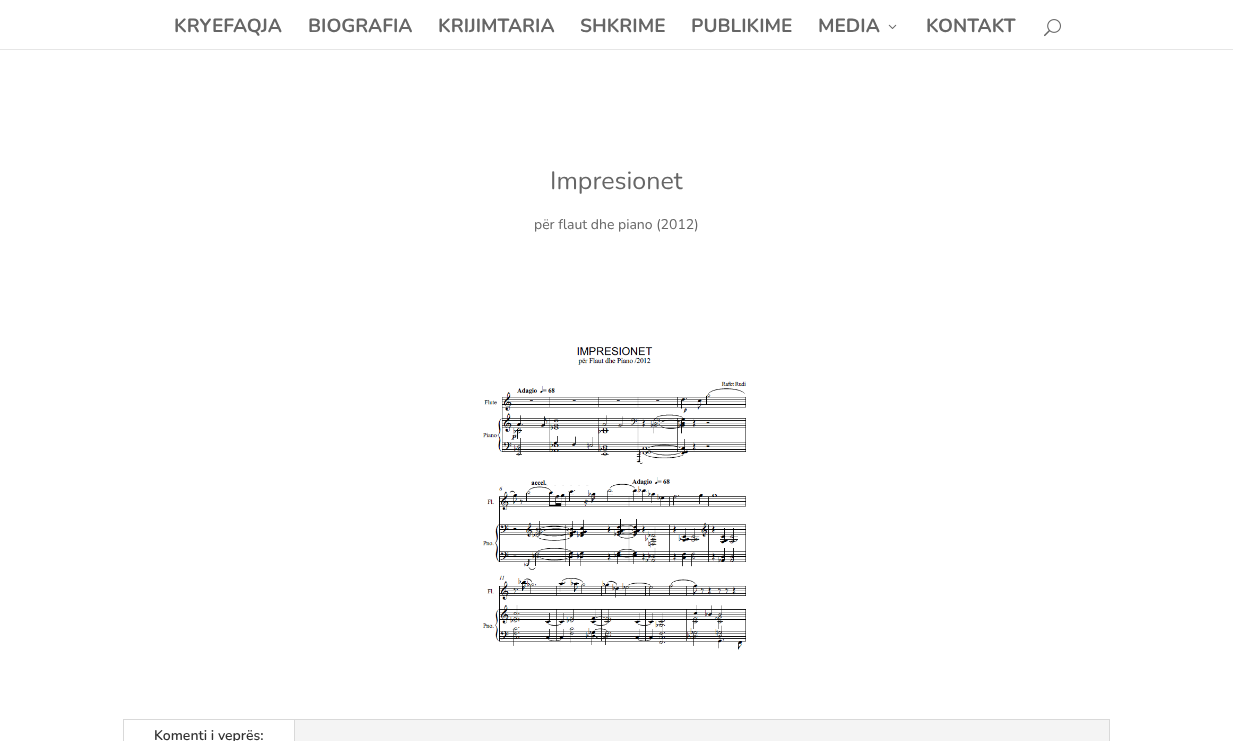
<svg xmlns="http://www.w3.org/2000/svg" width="1233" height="741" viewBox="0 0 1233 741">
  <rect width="100%" height="100%" fill="rgb(255,255,255)"/>
  <rect x="0" y="49" width="1233" height="1" fill="rgb(230,230,230)"/>
  <g font-family="Nunito" font-size="19" font-weight="bold" fill="rgb(102,102,102)">
    <text x="174" y="32">KRYEFAQJA</text>
    <text x="308" y="32">BIOGRAFIA</text>
    <text x="438" y="32">KRIJIMTARIA</text>
    <text x="580" y="32">SHKRIME</text>
    <text x="691" y="32">PUBLIKIME</text>
    <text x="818" y="32">MEDIA</text>
  </g>
  <image x="888" y="24" width="9" height="5" href="pic1.png"/>
  <text x="926" y="32" font-family="Nunito" font-size="19" font-weight="bold" fill="rgb(102,102,102)">KONTAKT</text>
  <image x="1044" y="19" width="17" height="18" href="pic2.png"/>
  <text x="550" y="189" font-family="Nunito" font-size="25" fill="rgb(102,102,102)">Impresionet</text>
  <text x="534" y="229" font-family="Nunito" font-size="14" fill="rgb(102,102,102)">për flaut dhe piano (2012)</text>
  <image x="483" y="346" width="263" height="304" href="pic3.png"/>
  <rect x="123.5" y="719.5" width="986" height="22" fill="none" stroke="rgb(217,217,217)"/>
  <rect x="295" y="720" width="814" height="21" fill="rgb(244,244,244)"/>
  <rect x="294" y="720" width="1" height="21" fill="rgb(217,217,217)"/>
  <text x="154" y="740" font-family="Nunito" font-size="14" font-weight="600" fill="rgb(51,51,51)">Komenti i veprës:</text>
</svg>
